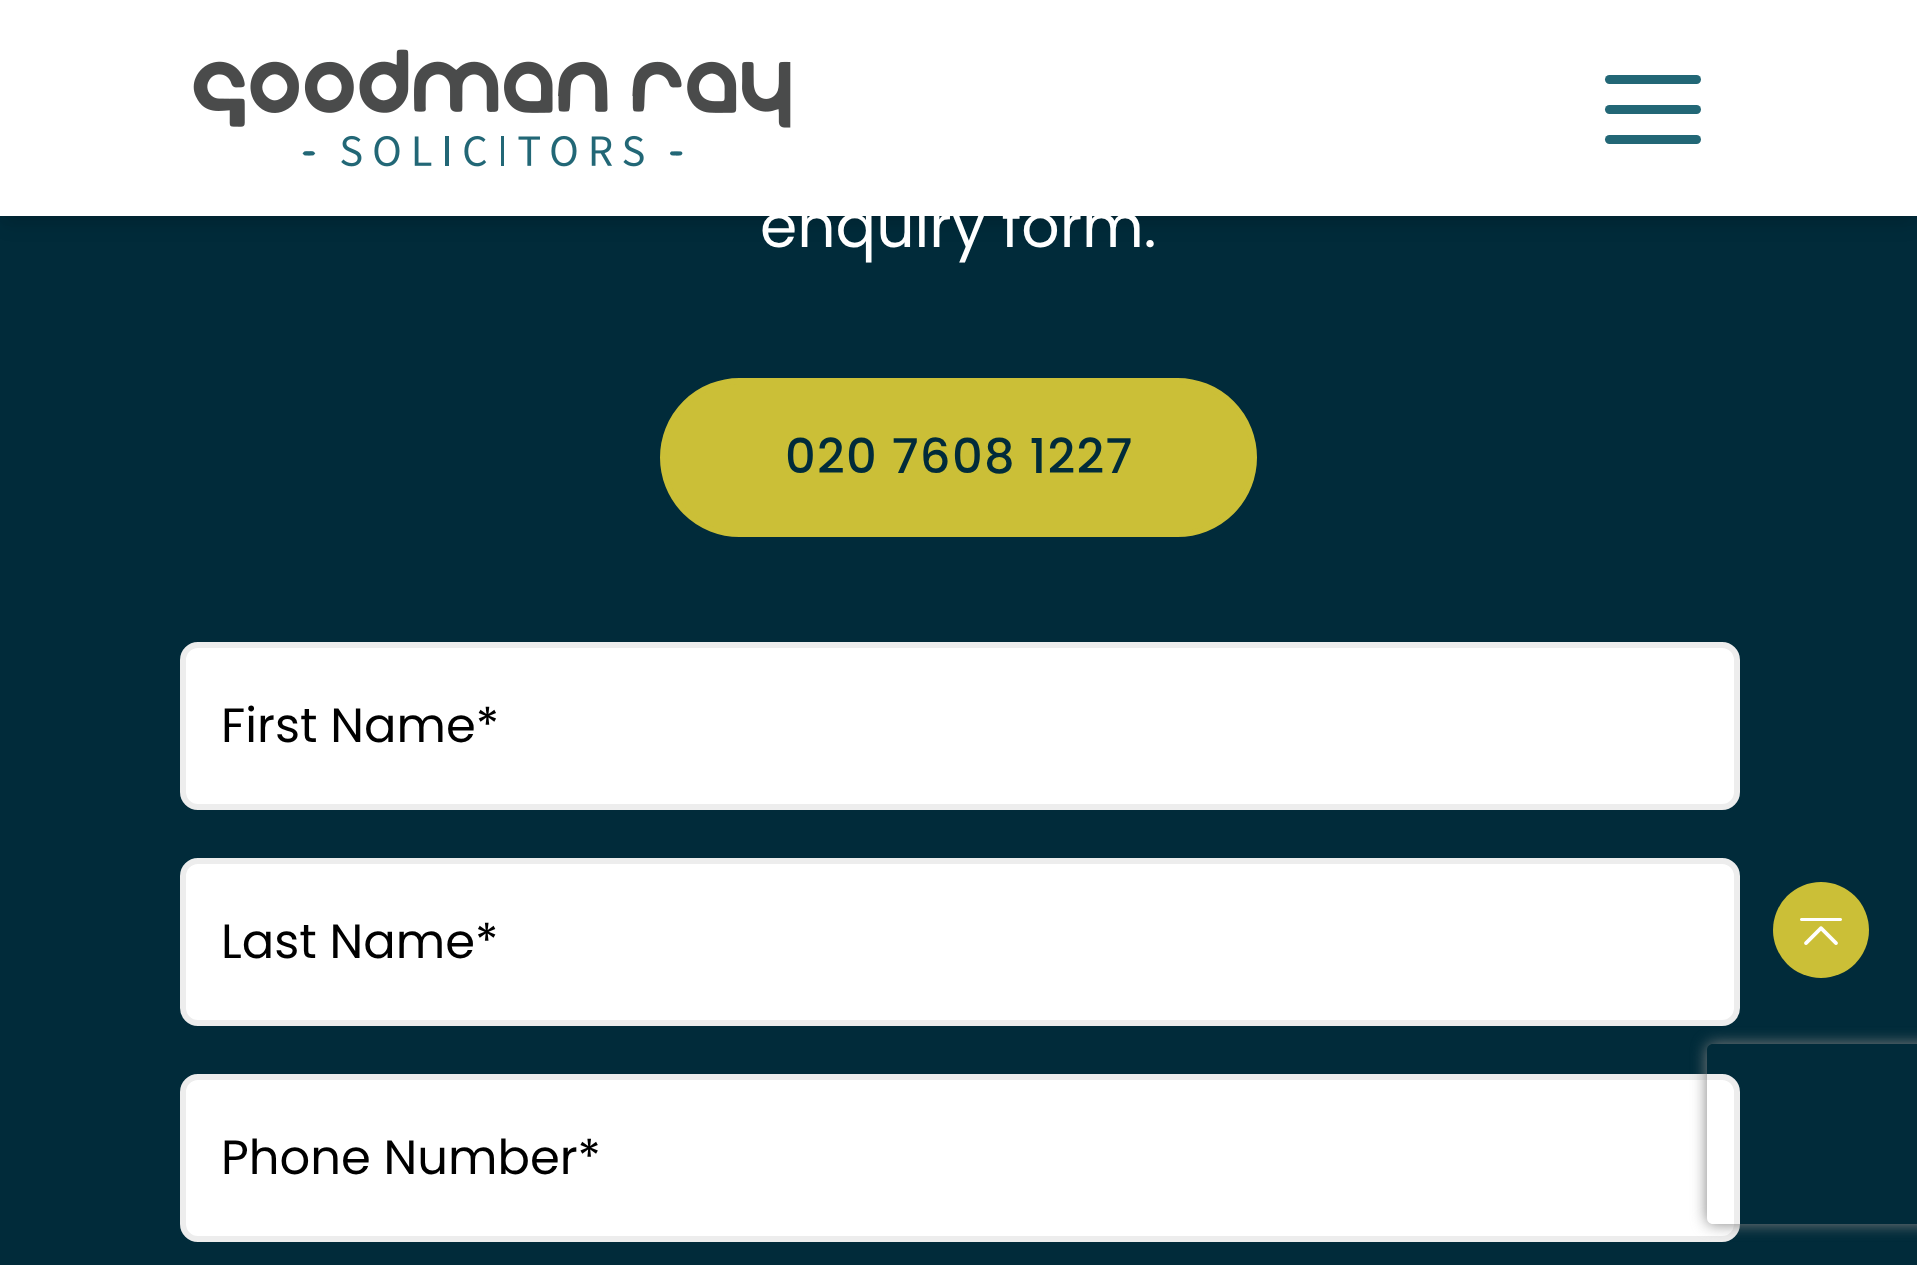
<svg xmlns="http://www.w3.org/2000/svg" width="1917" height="1265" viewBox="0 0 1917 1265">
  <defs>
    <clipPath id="clip1"><path d="M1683 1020H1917V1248H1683ZM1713 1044H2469C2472.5 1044 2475 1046.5 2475 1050V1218C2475 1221.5 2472.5 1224 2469 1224H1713C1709.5 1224 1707 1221.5 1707 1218V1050C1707 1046.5 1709.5 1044 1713 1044Z" clip-rule="evenodd"/></clipPath>
  </defs>
  <rect width="100%" height="100%" fill="rgb(1,43,58)"/>
  <rect x="6" y="12" width="1905" height="204" fill="rgba(0,0,0,0.1)" filter="blur(6px)"/>
  <rect x="3" y="15" width="1911" height="210" fill="rgba(0,0,0,0.1)" filter="blur(9px)"/>
  <rect x="0" y="0" width="1917" height="216" fill="rgb(255,255,255)"/>
  <image x="193" y="49" width="598" height="118" href="pic1.png"/>
  <rect x="1605" y="105" width="96" height="9" rx="4.5" fill="rgb(34,103,118)"/>
  <rect x="1605" y="75" width="96" height="9" rx="4.5" fill="rgb(34,103,118)"/>
  <rect x="1605" y="135" width="96" height="9" rx="4.5" fill="rgb(34,103,118)"/>
  <text x="760" y="247" font-family="Poppins" font-size="60" fill="rgb(255,255,255)">enquiry form.</text>
  <rect x="663" y="381" width="591" height="153" rx="76.5" fill="rgb(203,191,55)" stroke="rgb(203,191,55)" stroke-width="6"/>
  <text x="785" y="473" font-family="Poppins" font-size="48" font-weight="500" letter-spacing="1.25" fill="rgb(1,43,58)">020 7608 1227</text>
  <rect x="183" y="645" width="1554" height="162" rx="15" fill="rgb(255,255,255)" stroke="rgb(237,237,237)" stroke-width="6"/>
  <text x="221" y="742" font-family="Poppins" font-size="48" fill="rgb(0,0,0)">First Name*</text>
  <rect x="183" y="861" width="1554" height="162" rx="15" fill="rgb(255,255,255)" stroke="rgb(237,237,237)" stroke-width="6"/>
  <text x="221" y="958" font-family="Poppins" font-size="48" fill="rgb(0,0,0)">Last Name*</text>
  <rect x="183" y="1077" width="1554" height="162" rx="15" fill="rgb(255,255,255)" stroke="rgb(237,237,237)" stroke-width="6"/>
  <text x="221" y="1174" font-family="Poppins" font-size="48" fill="rgb(0,0,0)">Phone Number*</text>
  <g clip-path="url(#clip1)">
    <rect x="1707" y="1044" width="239" height="180" rx="6" fill="rgb(128,128,128)" filter="blur(7.5px)"/>
  </g>
  <circle cx="1821" cy="930" r="48" fill="rgb(203,191,55)"/>
  <image x="1800" y="918" width="42" height="27" href="pic2.png"/>
</svg>
